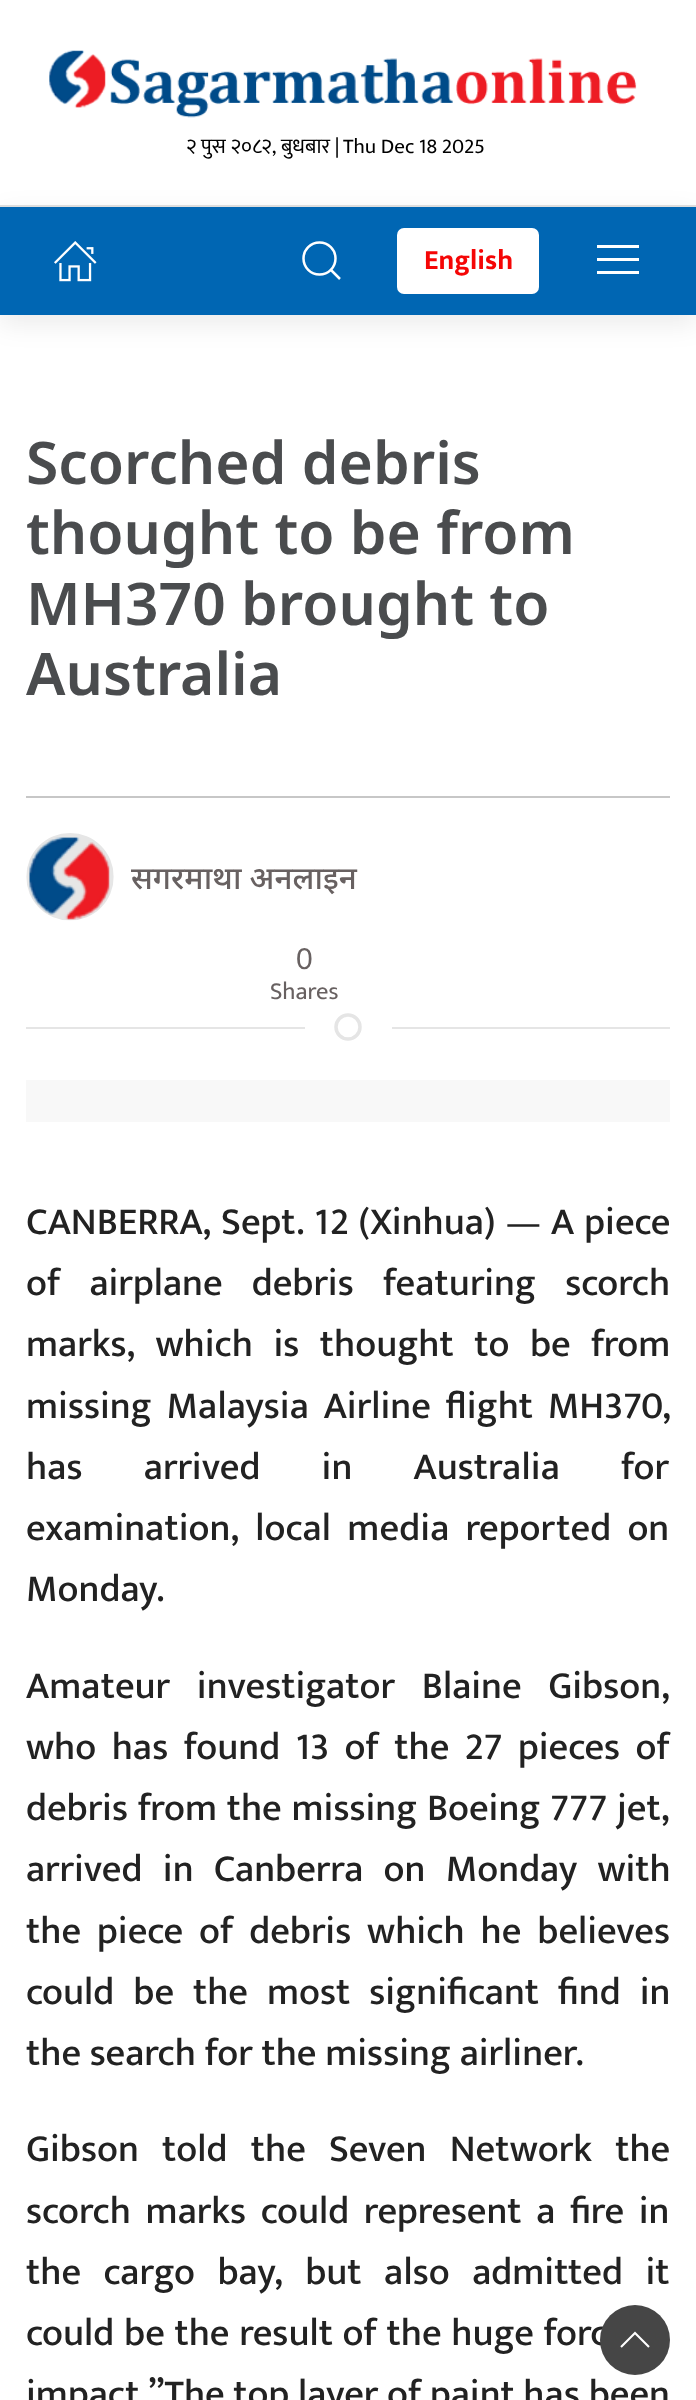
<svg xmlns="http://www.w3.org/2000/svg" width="696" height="2400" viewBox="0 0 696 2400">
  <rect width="100%" height="100%" fill="rgb(255,255,255)"/>
  <image x="49" y="50" width="588" height="68" href="pic1.png"/>
  <g font-family="Mukta" font-size="21" fill="rgb(0,0,0)">
    <text x="186" y="153">२ पुस २०८२, बुधबार |</text>
    <text x="343" y="153">Thu Dec 18 2025</text>
  </g>
  <rect x="0" y="214" width="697" height="110" fill="rgba(0,0,0,0.08)" filter="blur(13px)"/>
  <rect x="0" y="207" width="696" height="108" fill="rgb(0,102,179)"/>
  <rect x="0" y="205" width="696" height="2" fill="rgb(221,221,221)"/>
  <image x="54" y="241" width="43" height="41" href="pic2.png"/>
  <circle cx="319.5" cy="258.5" r="16" fill="none" stroke="rgb(255,255,255)" stroke-width="2.5"/>
  <path d="M331 270L340 279Z" fill="none" stroke="rgb(255,255,255)" stroke-width="2.5"/>
  <rect x="397" y="228" width="142" height="66" rx="7" fill="rgb(255,255,255)"/>
  <text x="424" y="269" font-family="Mukta" font-size="28" font-weight="bold" fill="rgb(245,6,6)">English</text>
  <rect x="597" y="245" width="42" height="3" fill="rgb(255,255,255)"/>
  <rect x="597" y="258" width="42" height="3" fill="rgb(255,255,255)"/>
  <rect x="597" y="271" width="42" height="3" fill="rgb(255,255,255)"/>
  <g font-family="Noto Sans" font-size="58.75" font-weight="600" fill="rgb(74,76,78)">
    <text>
      <tspan x="26" y="484">Scorched debris</tspan>
      <tspan x="26" y="554">thought to be from</tspan>
      <tspan x="26" y="625">MH370 brought to</tspan>
      <tspan x="26" y="695">Australia</tspan>
    </text>
  </g>
  <rect x="26" y="796" width="644" height="2" fill="rgb(199,199,199)"/>
  <image x="26" y="833" width="88" height="88" href="pic3.png"/>
  <text x="131" y="889" font-family="Noto Sans" font-size="31.5" font-weight="500" fill="rgb(104,97,97)">सगरमाथा अनलाइन</text>
  <text x="296" y="969" font-family="Liberation Sans" font-size="30" fill="rgb(104,97,97)">0</text>
  <text x="270" y="999" font-family="Mukta" font-size="24.5" fill="rgb(104,97,97)">Shares</text>
  <circle cx="348" cy="1027" r="12" fill="none" stroke="rgb(229,229,229)" stroke-width="3.5"/>
  <rect x="26" y="1027" width="279" height="2" fill="rgb(229,229,229)"/>
  <rect x="392" y="1027" width="278" height="2" fill="rgb(229,229,229)"/>
  <rect x="26" y="1080" width="644" height="42" fill="rgb(248,248,248)"/>
  <g font-family="Mukta" font-size="38.5" font-weight="500" fill="rgb(34,34,34)">
    <text>
      <tspan x="26" y="1234" word-spacing="1.25">CANBERRA, Sept. 12 (Xinhua) — A piece</tspan>
      <tspan x="26" y="1295" word-spacing="20.5">of airplane debris featuring scorch</tspan>
      <tspan x="26" y="1356" word-spacing="11.75">marks, which is thought to be from</tspan>
      <tspan x="26" y="1418" word-spacing="6">missing Malaysia Airline flight MH370,</tspan>
      <tspan x="26" y="1479" word-spacing="52.5">has arrived in Australia for</tspan>
      <tspan x="26" y="1540" word-spacing="7.5">examination, local media reported on</tspan>
      <tspan x="26" y="1601">Monday.</tspan>
    </text>
    <text>
      <tspan x="26" y="1698" word-spacing="18">Amateur investigator Blaine Gibson,</tspan>
      <tspan x="26" y="1759" word-spacing="6.75">who has found 13 of the 27 pieces of</tspan>
      <tspan x="26" y="1820" word-spacing="1">debris from the missing Boeing 777 jet,</tspan>
      <tspan x="26" y="1881" word-spacing="11.5">arrived in Canberra on Monday with</tspan>
      <tspan x="26" y="1943" word-spacing="7.25">the piece of debris which he believes</tspan>
      <tspan x="26" y="2004" word-spacing="10.25">could be the most significant find in</tspan>
      <tspan x="26" y="2065">the search for the missing airliner.</tspan>
    </text>
    <text>
      <tspan x="26" y="2161" word-spacing="14.5">Gibson told the Seven Network the</tspan>
      <tspan x="26" y="2223" word-spacing="6">scorch marks could represent a fire in</tspan>
      <tspan x="26" y="2284" word-spacing="13.75">the cargo bay, but also admitted it</tspan>
      <tspan x="26" y="2345" word-spacing="1">could be the result of the huge forc</tspan>
      <tspan x="26" y="2406">impact.”The top layer of paint has been</tspan>
    </text>
  </g>
  <circle cx="635" cy="2340" r="35" fill="rgb(70,70,70)"/>
  <path d="M621 2347L635 2333L649 2347" fill="none" stroke="rgb(255,255,255)" stroke-width="2.1"/>
</svg>
